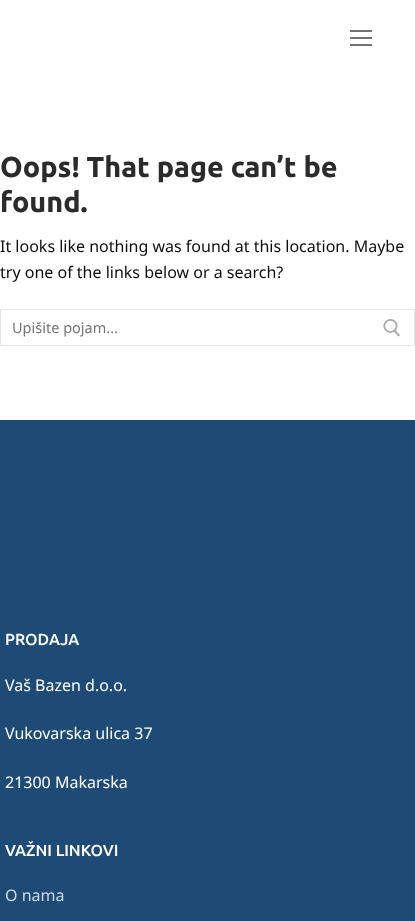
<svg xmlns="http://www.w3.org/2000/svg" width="415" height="921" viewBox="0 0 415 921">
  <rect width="100%" height="100%" fill="rgb(255,255,255)"/>
  <rect x="350" y="37" width="22" height="2" fill="rgb(115,115,115)"/>
  <rect x="350" y="30" width="22" height="2" fill="rgb(115,115,115)"/>
  <rect x="350" y="44" width="22" height="2" fill="rgb(115,115,115)"/>
  <g font-family="Ubuntu" font-size="28.75" font-weight="bold" fill="rgb(43,43,43)">
    <text>
      <tspan x="0" y="177">Oops! That page can’t be</tspan>
      <tspan x="0" y="212">found.</tspan>
    </text>
  </g>
  <g font-family="Noto Sans" font-size="16" fill="rgb(13,13,13)">
    <text>
      <tspan x="0" y="252">It looks like nothing was found at this location. Maybe</tspan>
      <tspan x="0" y="278">try one of the links below or a search?</tspan>
    </text>
  </g>
  <rect x="0.5" y="309.5" width="414" height="36" rx="0.5" fill="none" stroke="rgb(229,229,229)"/>
  <text x="12" y="333" font-family="Noto Sans" font-size="14.5" fill="rgb(117,117,117)">Upišite pojam...</text>
  <image x="383" y="319" width="17" height="18" href="pic1.png"/>
  <rect x="0" y="420" width="415" height="501" fill="rgb(30,75,117)"/>
  <text x="5" y="645" font-family="Ubuntu" font-size="16" font-weight="500" fill="rgb(253,253,254)">PRODAJA</text>
  <g font-family="Noto Sans" font-size="16" fill="rgb(253,253,254)">
    <text x="5" y="691">Vaš Bazen d.o.o.</text>
    <text x="5" y="739">Vukovarska ulica 37</text>
    <text x="5" y="788">21300 Makarska</text>
  </g>
  <text x="5" y="856" font-family="Ubuntu" font-size="16" font-weight="500" fill="rgb(253,253,254)">VAŽNI LINKOVI</text>
  <text x="5" y="901" font-family="Noto Sans" font-size="16" fill="rgb(208,217,226)">O nama</text>
</svg>
